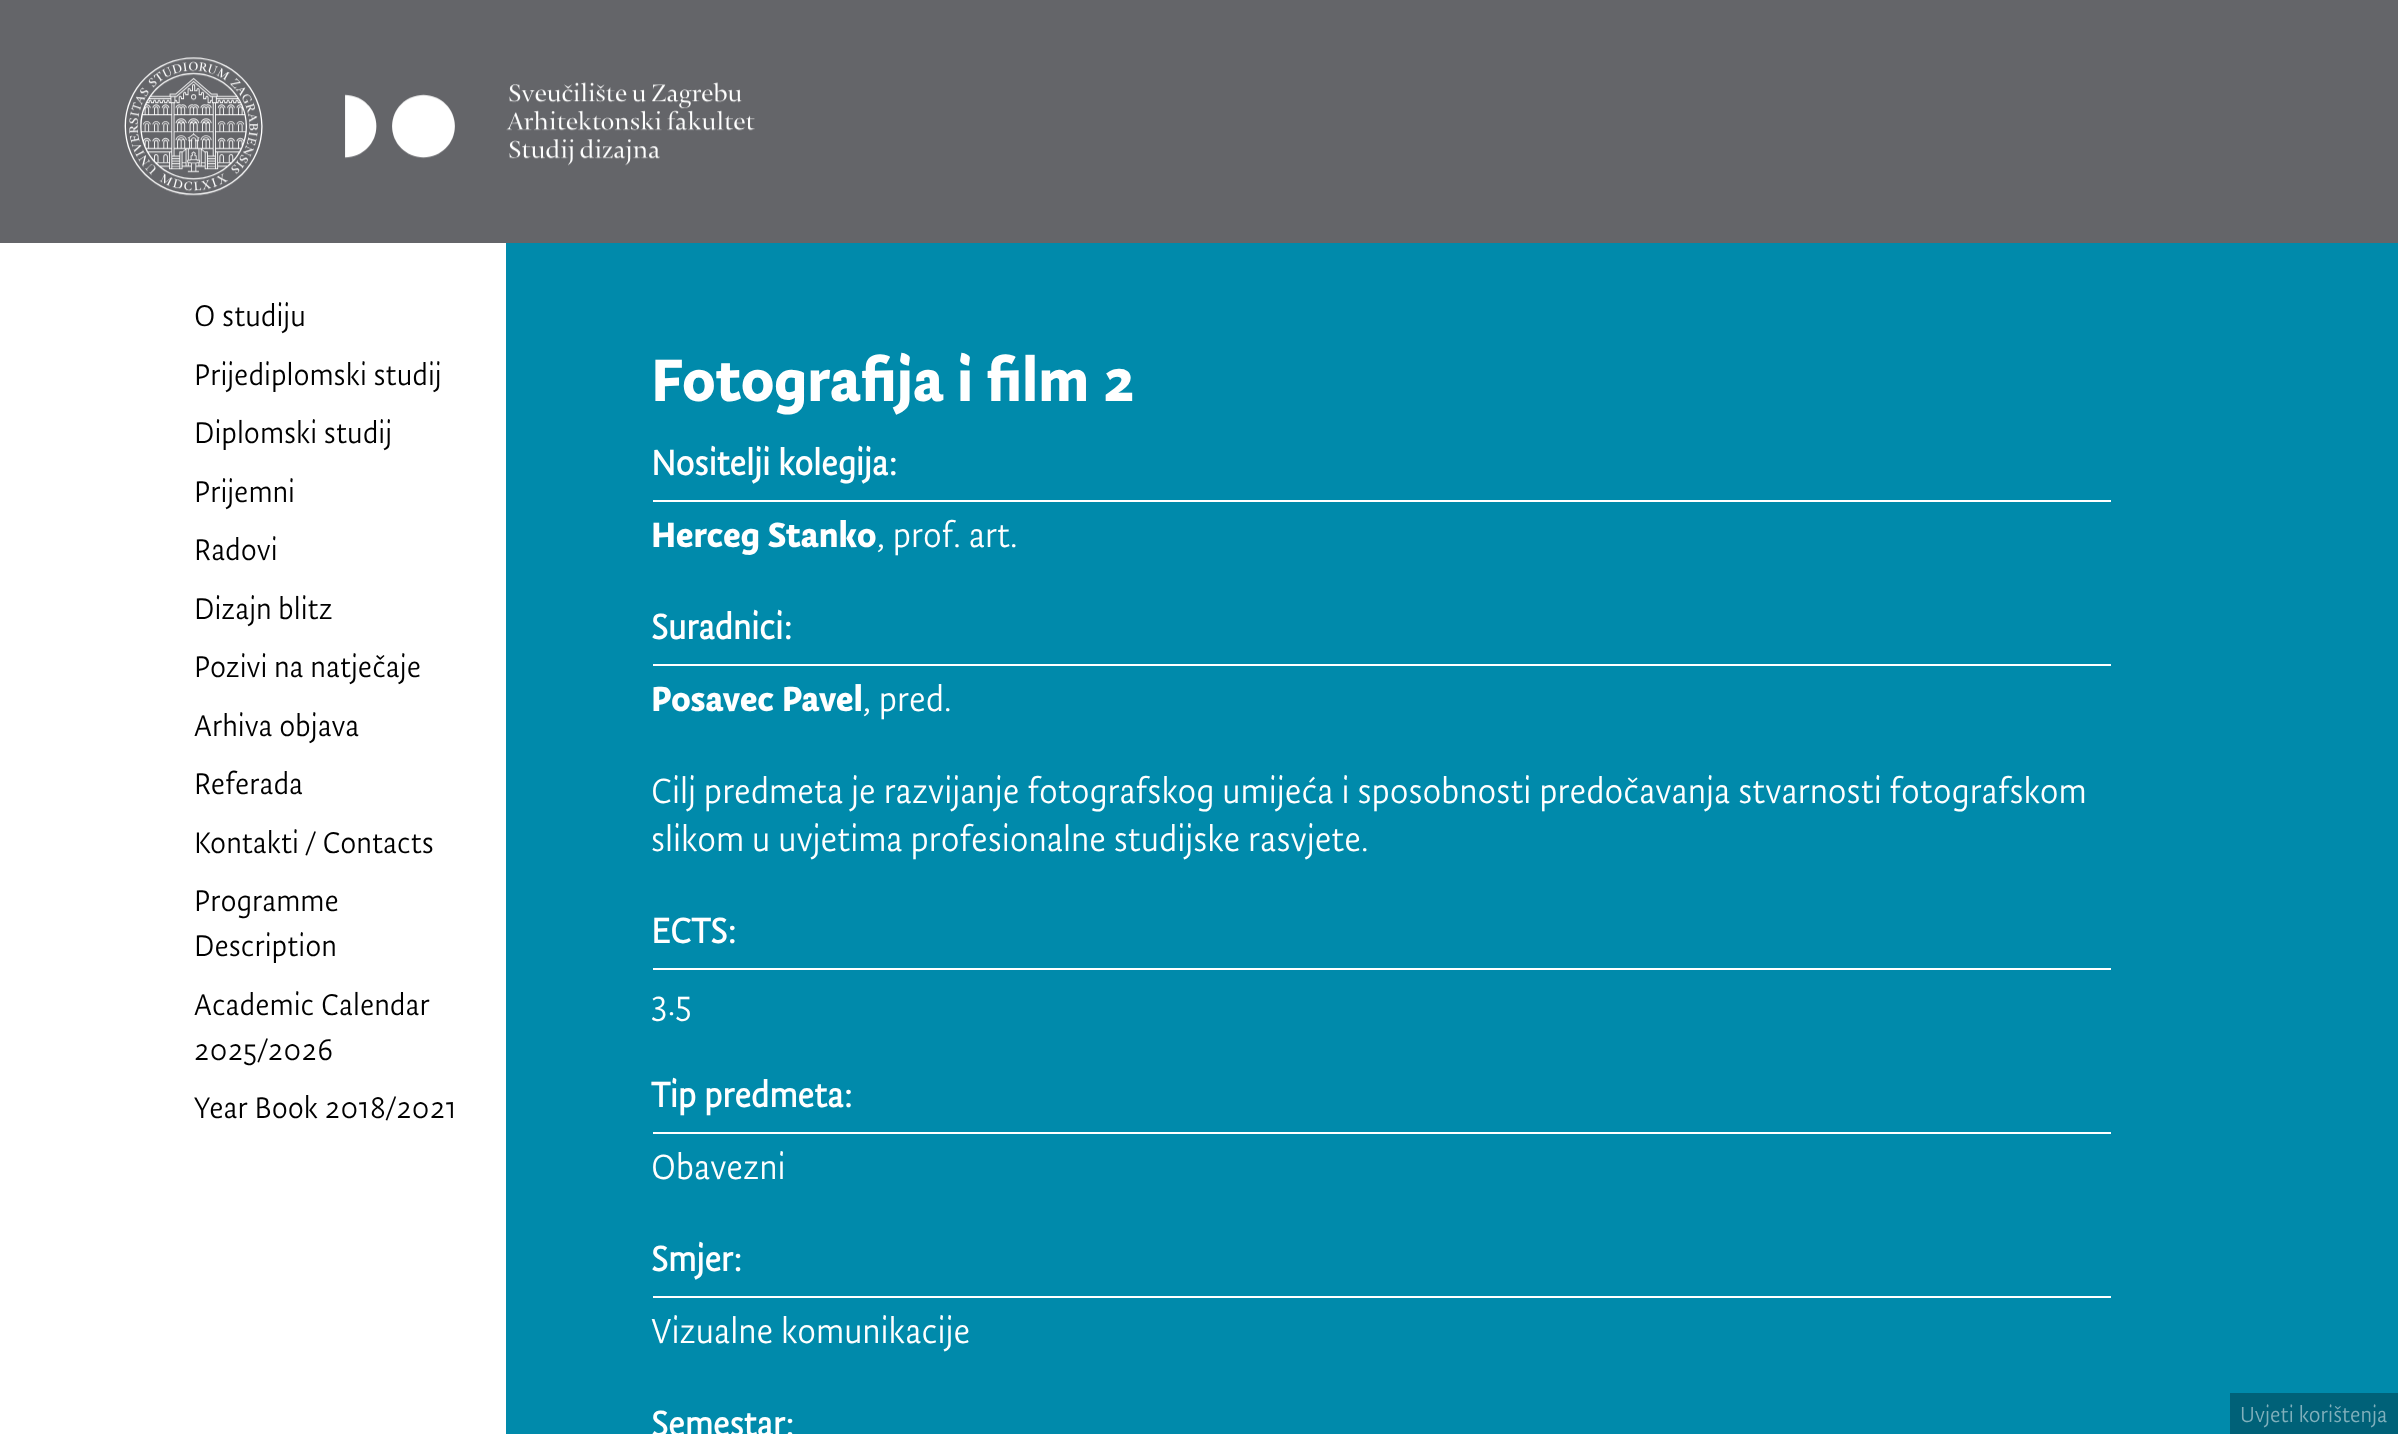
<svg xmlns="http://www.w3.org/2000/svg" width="2398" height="1434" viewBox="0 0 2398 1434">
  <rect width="100%" height="100%" fill="rgb(255,255,255)"/>
  <rect x="0" y="0" width="2398" height="243" fill="rgb(100,101,105)"/>
  <image x="124" y="57" width="331" height="139" href="pic1.png"/>
  <image x="506" y="82" width="249" height="84" href="pic2.png"/>
  <rect x="506" y="243" width="1892" height="1191" fill="rgb(0,138,171)"/>
  <g font-family="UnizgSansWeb" font-size="33.75" fill="rgb(0,0,0)">
    <text>
      <tspan x="194" y="326">O studiju</tspan>
      <tspan x="194" y="385">Prijediplomski studij</tspan>
      <tspan x="194" y="443">Diplomski studij</tspan>
      <tspan x="194" y="502">Prijemni</tspan>
      <tspan x="194" y="560">Radovi</tspan>
      <tspan x="194" y="619">Dizajn blitz</tspan>
      <tspan x="194" y="677">Pozivi na natječaje</tspan>
      <tspan x="194" y="736">Arhiva objava</tspan>
      <tspan x="194" y="794">Referada</tspan>
      <tspan x="194" y="853">Kontakti / Contacts</tspan>
      <tspan x="194" y="911">Programme</tspan>
      <tspan x="194" y="956">Description</tspan>
      <tspan x="194" y="1015">Academic Calendar</tspan>
      <tspan x="194" y="1060">2025/2026</tspan>
      <tspan x="194" y="1118">Year Book 2018/2021</tspan>
    </text>
  </g>
  <text x="651" y="401" font-family="UnizgSansWeb" font-size="67.5" font-weight="bold" fill="rgb(255,255,255)">Fotografija i film 2</text>
  <rect x="653" y="500" width="1458" height="2" fill="rgb(255,255,255)"/>
  <text x="651" y="475" font-family="'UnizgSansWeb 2'" font-size="39.4" font-weight="bold" fill="rgb(255,255,255)">Nositelji kolegija:</text>
  <text x="651" y="547" font-family="UnizgSansWeb" font-size="39.4" font-weight="bold" fill="rgb(255,255,255)">Herceg Stanko</text>
  <text x="877" y="547" font-family="UnizgSansWeb" font-size="39.4" fill="rgb(255,255,255)">, prof. art.</text>
  <rect x="653" y="664" width="1458" height="2" fill="rgb(255,255,255)"/>
  <text x="651" y="639" font-family="'UnizgSansWeb 2'" font-size="39.4" font-weight="bold" fill="rgb(255,255,255)">Suradnici:</text>
  <text x="651" y="711" font-family="UnizgSansWeb" font-size="39.4" font-weight="bold" fill="rgb(255,255,255)">Posavec Pavel</text>
  <g font-family="UnizgSansWeb" font-size="39.4" fill="rgb(255,255,255)">
    <text x="863" y="711">, pred.</text>
    <text>
      <tspan x="651" y="803">Cilj predmeta je razvijanje fotografskog umijeća i sposobnosti predočavanja stvarnosti fotografskom</tspan>
      <tspan x="651" y="851">slikom u uvjetima profesionalne studijske rasvjete.</tspan>
    </text>
  </g>
  <rect x="653" y="968" width="1458" height="2" fill="rgb(255,255,255)"/>
  <text x="651" y="943" font-family="'UnizgSansWeb 2'" font-size="39.4" font-weight="bold" fill="rgb(255,255,255)">ECTS:</text>
  <text x="651" y="1015" font-family="UnizgSansWeb" font-size="39.4" fill="rgb(255,255,255)">3.5</text>
  <rect x="653" y="1132" width="1458" height="2" fill="rgb(255,255,255)"/>
  <text x="651" y="1107" font-family="'UnizgSansWeb 2'" font-size="39.4" font-weight="bold" fill="rgb(255,255,255)">Tip predmeta:</text>
  <text x="651" y="1179" font-family="UnizgSansWeb" font-size="39.4" fill="rgb(255,255,255)">Obavezni</text>
  <rect x="653" y="1296" width="1458" height="2" fill="rgb(255,255,255)"/>
  <text x="651" y="1271" font-family="'UnizgSansWeb 2'" font-size="39.4" font-weight="bold" fill="rgb(255,255,255)">Smjer:</text>
  <text x="651" y="1343" font-family="UnizgSansWeb" font-size="39.4" fill="rgb(255,255,255)">Vizualne komunikacije</text>
  <text x="651" y="1436" font-family="'UnizgSansWeb 2'" font-size="39.4" font-weight="bold" fill="rgb(255,255,255)">Semestar:</text>
  <rect x="2230" y="1393" width="168" height="41" fill="rgb(0,97,120)"/>
  <text x="2240" y="1422" font-family="UnizgSansWeb" font-size="24.75" fill="rgb(128,176,188)">Uvjeti korištenja</text>
</svg>
